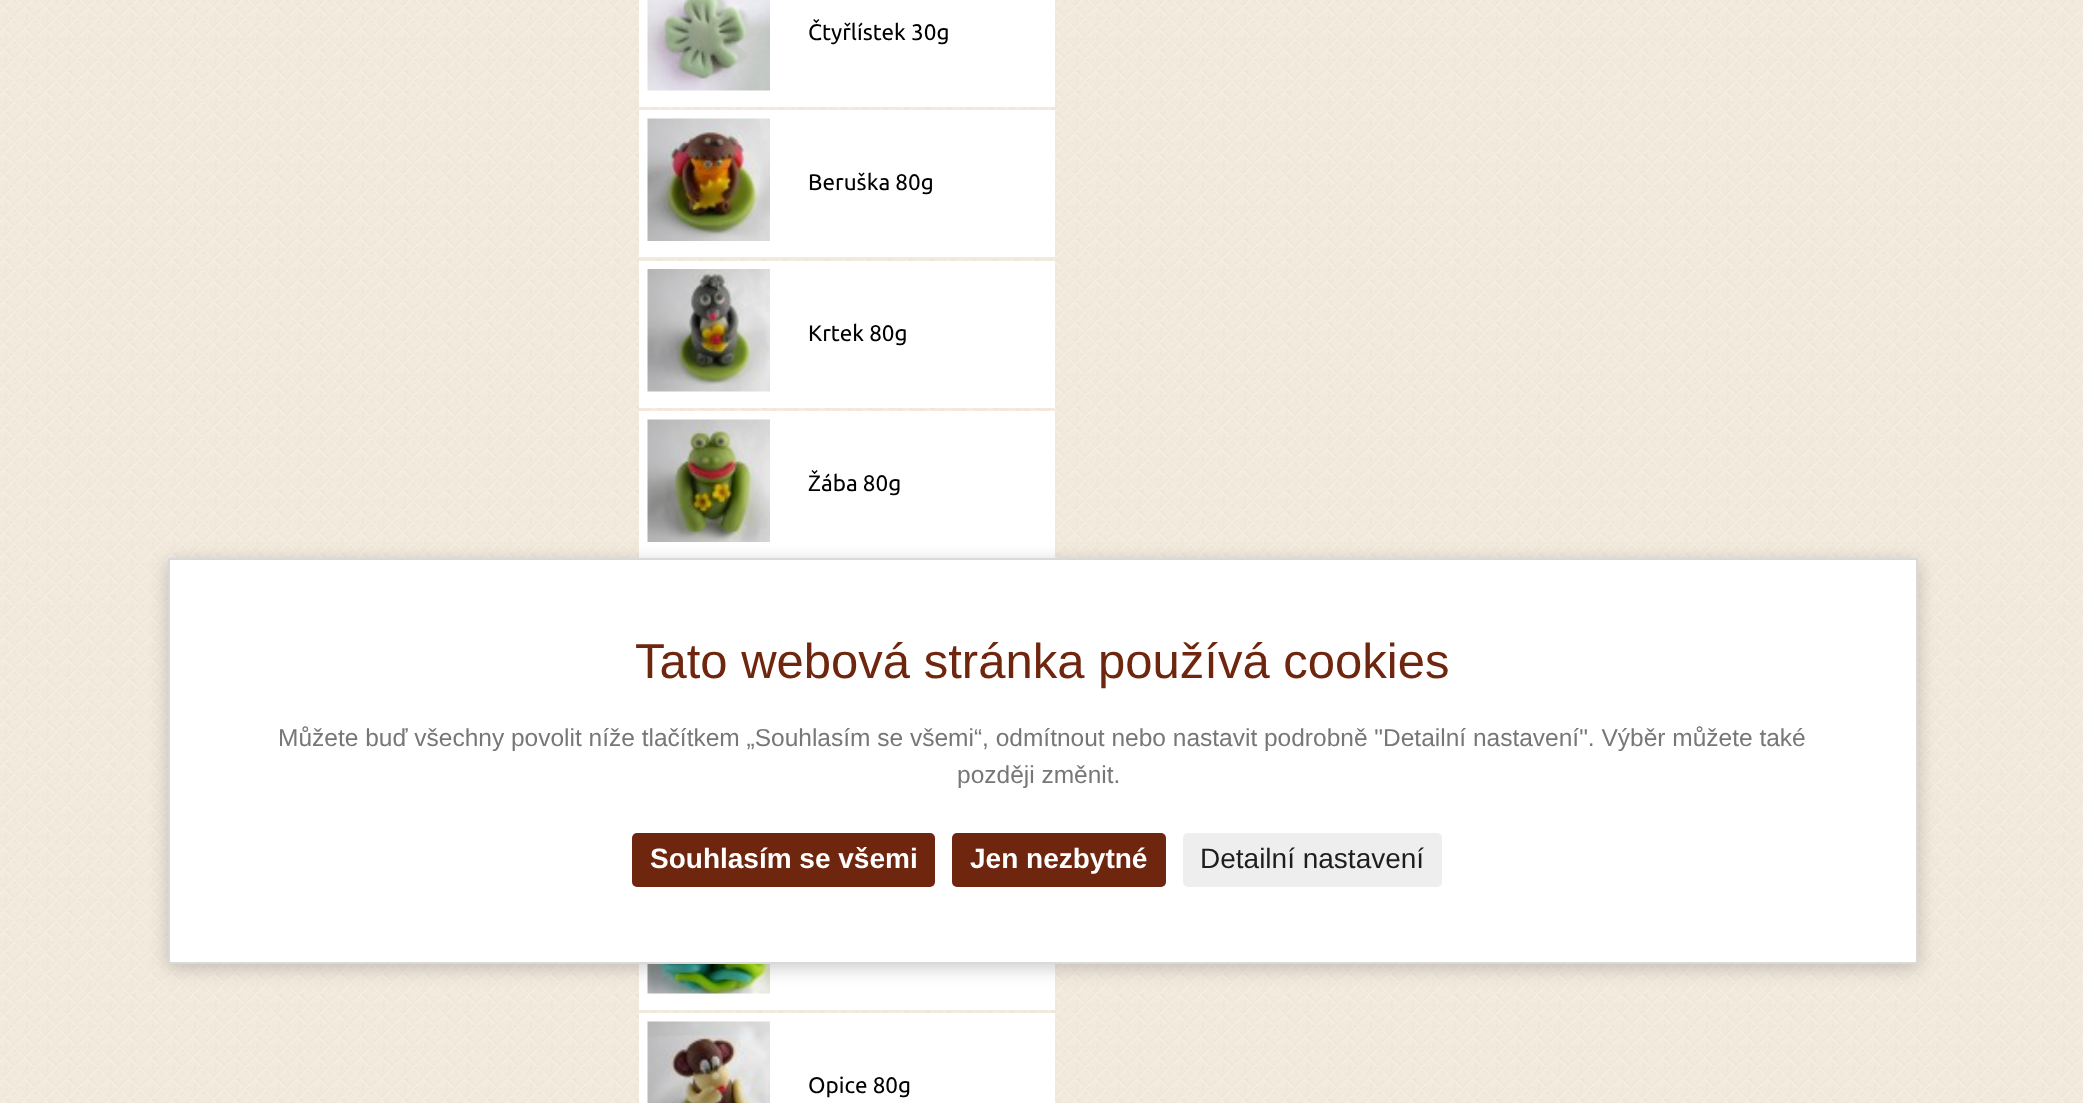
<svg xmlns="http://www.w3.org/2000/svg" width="2083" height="1103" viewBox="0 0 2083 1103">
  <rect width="100%" height="100%" fill="rgb(255,255,255)"/>
  <image x="0" y="0" width="2083" height="1103" href="pic1.png"/>
  <rect x="639" y="0" width="416" height="107" fill="rgb(255,255,255)"/>
  <image x="647" y="0" width="123" height="91" href="pic2.png"/>
  <text x="808" y="40" font-family="Ubuntu" font-size="22.5" fill="rgb(0,0,0)">Čtyřlístek 30g</text>
  <rect x="639" y="110" width="416" height="147" fill="rgb(255,255,255)"/>
  <image x="647" y="118" width="123" height="123" href="pic3.png"/>
  <text x="808" y="190" font-family="Ubuntu" font-size="22.5" fill="rgb(0,0,0)">Beruška 80g</text>
  <rect x="639" y="261" width="416" height="147" fill="rgb(255,255,255)"/>
  <image x="647" y="269" width="123" height="123" href="pic4.png"/>
  <text x="808" y="341" font-family="Ubuntu" font-size="22.5" fill="rgb(0,0,0)">Krtek 80g</text>
  <rect x="639" y="411" width="416" height="147" fill="rgb(255,255,255)"/>
  <image x="647" y="419" width="123" height="123" href="pic5.png"/>
  <text x="808" y="491" font-family="Ubuntu" font-size="22.5" fill="rgb(0,0,0)">Žába 80g</text>
  <rect x="639" y="964" width="416" height="46" fill="rgb(255,255,255)"/>
  <image x="647" y="964" width="123" height="30" href="pic6.png"/>
  <rect x="639" y="1013" width="416" height="90" fill="rgb(255,255,255)"/>
  <image x="647" y="1021" width="123" height="82" href="pic7.png"/>
  <text x="808" y="1093" font-family="Ubuntu" font-size="22.5" fill="rgb(0,0,0)">Opice 80g</text>
  <rect x="168" y="562" width="1750" height="406" fill="rgba(0,0,0,0.2)" filter="blur(9px)"/>
  <rect x="169" y="559" width="1748" height="404" fill="rgb(255,255,255)" stroke="rgb(217,217,217)" stroke-width="2"/>
  <text x="635" y="678" font-family="Liberation Sans" font-size="49" fill="rgb(110,38,14)">Tato webová stránka používá cookies</text>
  <g font-family="Liberation Sans" font-size="24.5" fill="rgb(119,119,119)">
    <text x="278" y="746">Můžete buď všechny povolit níže tlačítkem „Souhlasím se všemi“, odmítnout nebo nastavit podrobně "Detailní nastavení". Výběr můžete také</text>
    <text x="957" y="783">později změnit.</text>
  </g>
  <rect x="632" y="833" width="303" height="54" rx="5" fill="rgb(110,38,14)"/>
  <text x="650" y="868" font-family="Liberation Sans" font-size="28" font-weight="bold" fill="rgb(255,255,255)">Souhlasím se všemi</text>
  <rect x="952" y="833" width="214" height="54" rx="5" fill="rgb(110,38,14)"/>
  <text x="970" y="868" font-family="Liberation Sans" font-size="28" font-weight="bold" fill="rgb(255,255,255)">Jen nezbytné</text>
  <rect x="1183" y="833" width="259" height="54" rx="5" fill="rgb(238,238,238)"/>
  <text x="1200" y="868" font-family="Liberation Sans" font-size="28" fill="rgb(30,30,30)">Detailní nastavení</text>
</svg>
